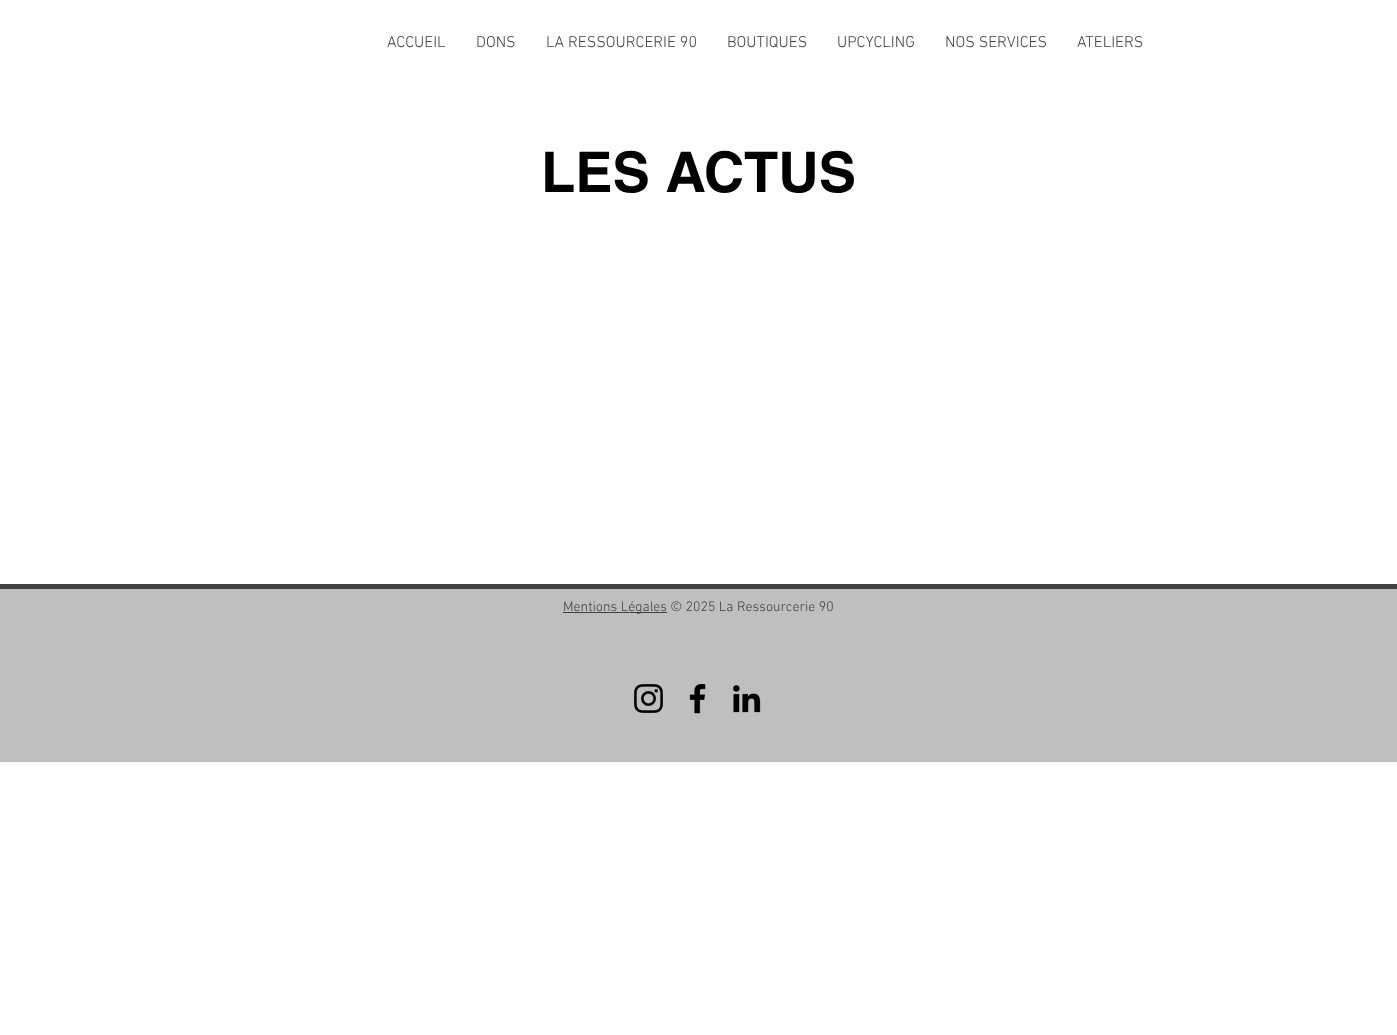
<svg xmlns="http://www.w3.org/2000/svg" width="1397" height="1035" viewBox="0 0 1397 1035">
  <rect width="100%" height="100%" fill="rgb(255,255,255)"/>
  <g font-family="'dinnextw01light'" font-size="16" font-weight="300" fill="rgb(64,64,64)">
    <text x="387" y="47">ACCUEIL</text>
    <text x="476" y="47">DONS</text>
    <text x="546" y="47">LA RESSOURCERIE 90</text>
    <text x="727" y="47">BOUTIQUES</text>
    <text x="837" y="47">UPCYCLING</text>
    <text x="945" y="47">NOS SERVICES</text>
    <text x="1077" y="47">ATELIERS</text>
  </g>
  <text x="541" y="192" font-family="helvetica" font-size="56" font-weight="bold" fill="rgb(0,0,0)">LES ACTUS</text>
  <rect x="0" y="589" width="1397" height="173" fill="rgb(191,191,191)"/>
  <rect x="0" y="584" width="1397" height="5" fill="rgb(64,64,64)"/>
  <rect x="563" y="612" width="104" height="1" fill="rgb(64,64,64)"/>
  <text x="563" y="611" font-family="'dinnextw01light'" font-size="14" font-weight="300" fill="rgb(64,64,64)">Mentions Légales © 2025 La Ressourcerie 90</text>
  <image x="634" y="684" width="29" height="29" href="pic1.png"/>
  <image x="689" y="684" width="17" height="30" href="pic2.png"/>
  <image x="732" y="685" width="29" height="28" href="pic3.png"/>
</svg>
